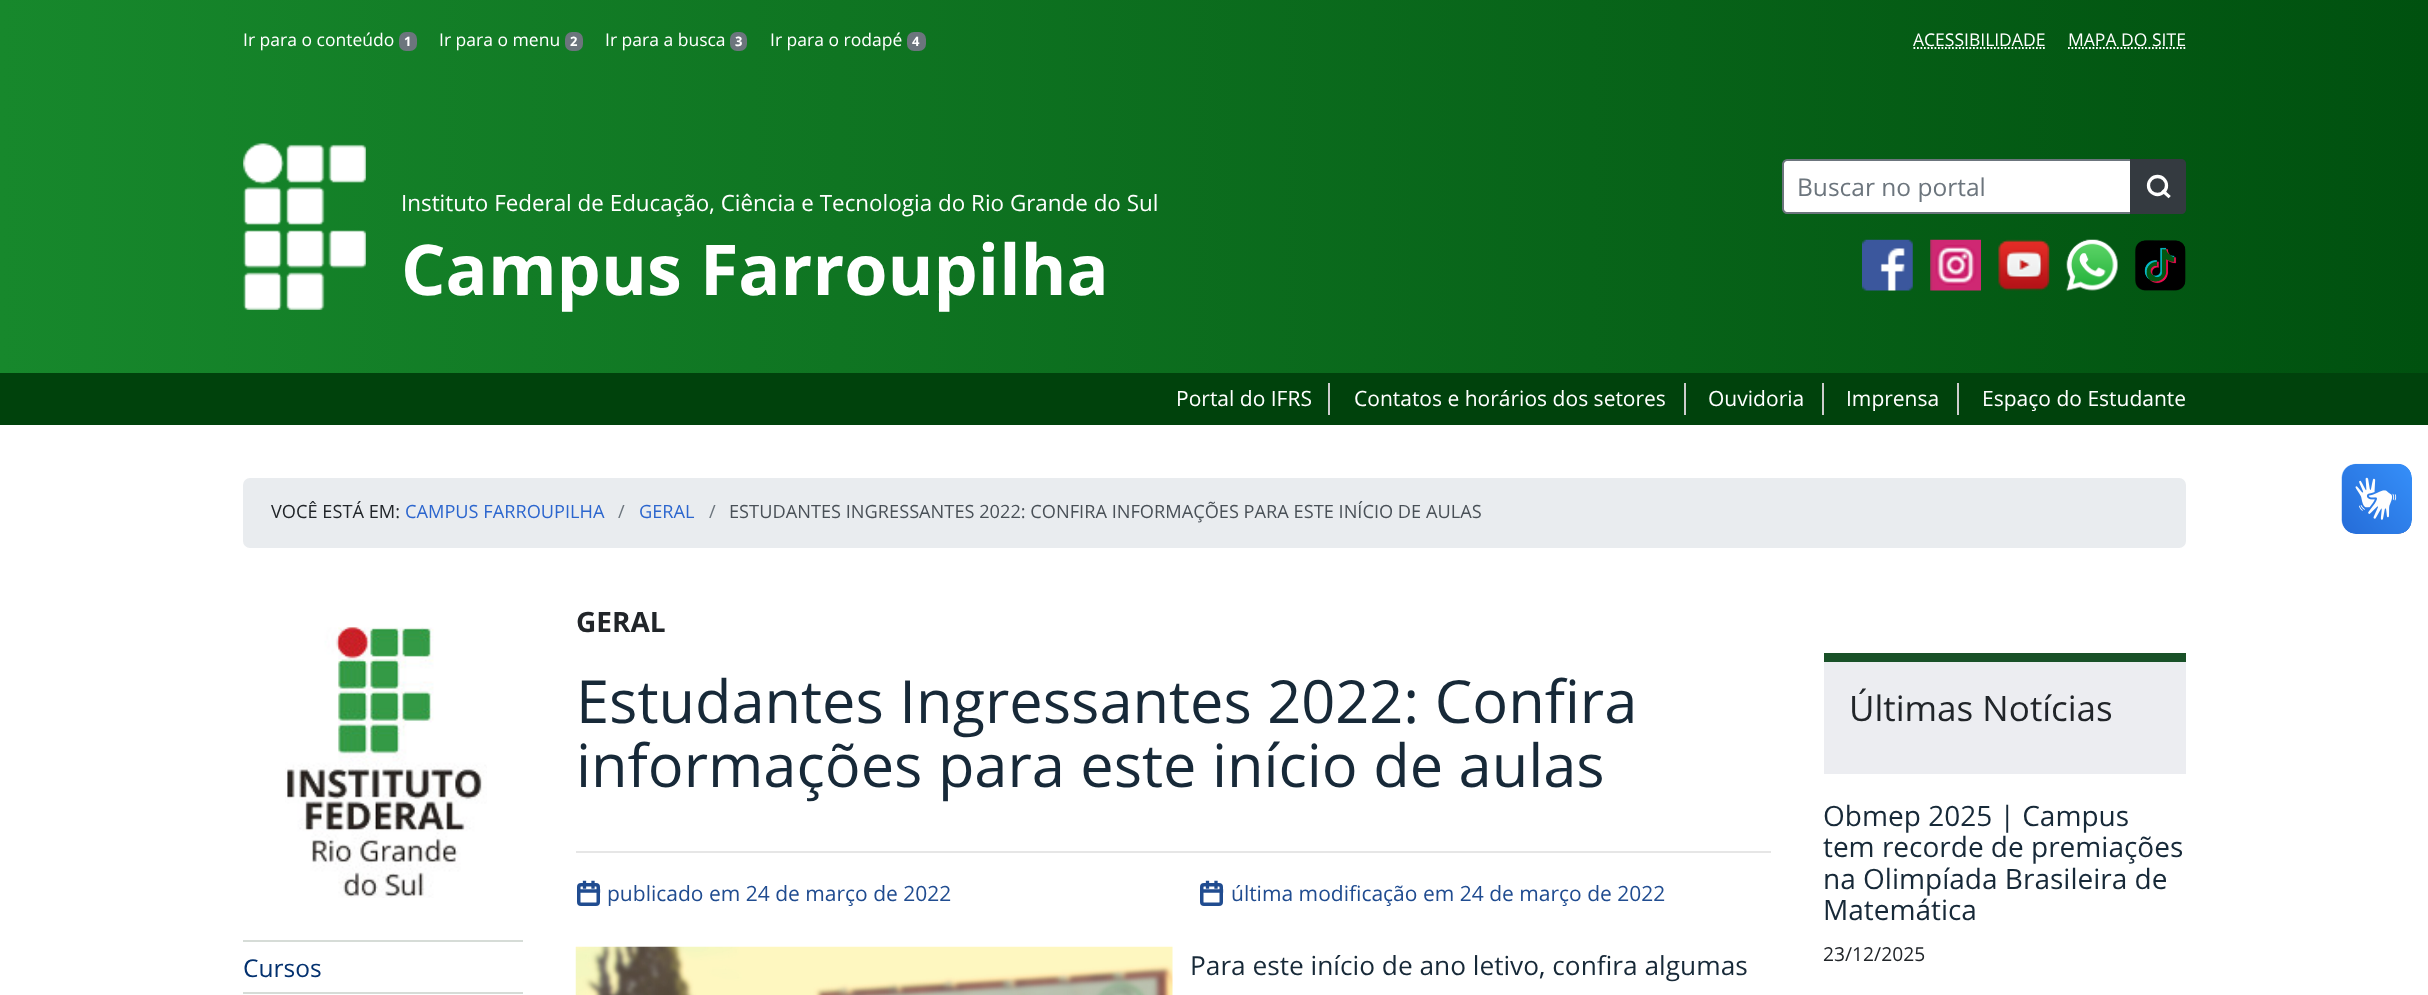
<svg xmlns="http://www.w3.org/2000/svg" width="2428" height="995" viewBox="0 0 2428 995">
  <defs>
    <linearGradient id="g1" gradientUnits="userSpaceOnUse" x1="0" y1="213" x2="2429" y2="213"><stop offset="0" stop-color="rgb(23,136,44)"/><stop offset="1" stop-color="rgb(0,81,15)"/></linearGradient>
  </defs>
  <rect width="100%" height="100%" fill="rgb(255,255,255)"/>
  <rect x="0" y="0" width="2428" height="373" fill="url(#g1)"/>
  <text x="243" y="46" font-family="Open Sans" font-size="17.5" fill="rgb(255,255,255)">Ir para o conteúdo</text>
  <rect x="399" y="32" width="18" height="19" rx="7" fill="rgb(108,117,125)"/>
  <text x="404" y="46" font-family="Open Sans" font-size="13" font-weight="bold" fill="rgb(255,255,255)">1</text>
  <text x="439" y="46" font-family="Open Sans" font-size="17.5" fill="rgb(255,255,255)">Ir para o menu</text>
  <rect x="565" y="32" width="18" height="19" rx="7" fill="rgb(108,117,125)"/>
  <text x="570" y="46" font-family="Open Sans" font-size="13" font-weight="bold" fill="rgb(255,255,255)">2</text>
  <text x="605" y="46" font-family="Open Sans" font-size="17.5" fill="rgb(255,255,255)">Ir para a busca</text>
  <rect x="730" y="32" width="17" height="19" rx="7" fill="rgb(108,117,125)"/>
  <text x="735" y="46" font-family="Open Sans" font-size="13" font-weight="bold" fill="rgb(255,255,255)">3</text>
  <text x="770" y="46" font-family="Open Sans" font-size="17.5" fill="rgb(255,255,255)">Ir para o rodapé</text>
  <rect x="907" y="32" width="19" height="19" rx="7" fill="rgb(108,117,125)"/>
  <text x="912" y="46" font-family="Open Sans" font-size="13" font-weight="bold" fill="rgb(255,255,255)">4</text>
  <text x="1913" y="46" font-family="Open Sans" font-size="17.5" fill="rgb(255,255,255)">ACESSIBILIDADE</text>
  <path d="M1913.5 48H2046" fill="none" stroke="rgb(255,255,255)" stroke-width="1.8" stroke-dasharray="1.75 1.75"/>
  <text x="2068" y="46" font-family="Open Sans" font-size="17.5" fill="rgb(255,255,255)">MAPA DO SITE</text>
  <path d="M2068 48H2186" fill="none" stroke="rgb(255,255,255)" stroke-width="1.8" stroke-dasharray="1.75 1.75"/>
  <path d="M1787 160H2131V213H1787C1785 213 1783 211 1783 209V164C1783 162 1785 160 1787 160Z" fill="rgb(255,255,255)" stroke="rgb(108,117,125)" stroke-width="2"/>
  <text x="1797" y="196" font-family="Open Sans" font-size="24.5" fill="rgb(108,117,125)">Buscar no portal</text>
  <path d="M2130 159H2181C2184 159 2186 161 2186 164V209C2186 212 2184 214 2181 214H2130Z" fill="rgb(52,58,64)"/>
  <circle cx="2157.5" cy="185.5" r="9" fill="none" stroke="rgb(255,255,255)" stroke-width="3.3"/>
  <path d="M2168.5 196L2163.5 191.5" fill="none" stroke="rgb(255,255,255)" stroke-width="3.3" stroke-linecap="square"/>
  <path d="M2131 160H2181C2183 160 2185 162 2185 164V209C2185 211 2183 213 2181 213H2131Z" fill="none" stroke="rgb(52,58,64)" stroke-width="2"/>
  <image x="1862" y="239" width="51" height="52" href="pic1.png"/>
  <image x="1930" y="239" width="51" height="52" href="pic2.png"/>
  <image x="1998" y="239" width="52" height="52" href="pic3.png"/>
  <image x="2066" y="239" width="52" height="52" href="pic4.png"/>
  <image x="2135" y="240" width="51" height="51" href="pic5.png"/>
  <image x="243" y="143" width="123" height="167" href="pic6.png"/>
  <text x="401" y="211" font-family="Open Sans" font-size="22.4" fill="rgb(255,255,255)">Instituto Federal de Educação, Ciência e Tecnologia do Rio Grande do Sul</text>
  <text x="401" y="295" font-family="Open Sans" font-size="70" font-weight="bold" fill="rgb(255,255,255)">Campus Farroupilha</text>
  <rect x="0" y="373" width="2428" height="52" fill="rgb(0,66,12)"/>
  <rect x="1328" y="383" width="2" height="32" fill="rgb(204,204,204)"/>
  <text x="1176" y="406" font-family="Open Sans" font-size="21" fill="rgb(255,255,255)">Portal do IFRS</text>
  <rect x="1684" y="383" width="2" height="32" fill="rgb(204,204,204)"/>
  <text x="1354" y="406" font-family="Open Sans" font-size="21" fill="rgb(255,255,255)">Contatos e horários dos setores</text>
  <rect x="1822" y="383" width="2" height="32" fill="rgb(204,204,204)"/>
  <text x="1708" y="406" font-family="Open Sans" font-size="21" fill="rgb(255,255,255)">Ouvidoria</text>
  <rect x="1957" y="383" width="2" height="32" fill="rgb(204,204,204)"/>
  <g font-family="Open Sans" font-size="21" fill="rgb(255,255,255)">
    <text x="1846" y="406">Imprensa</text>
    <text x="1982" y="406">Espaço do Estudante</text>
  </g>
  <rect x="243" y="478" width="1943" height="70" rx="7" fill="rgb(233,236,239)"/>
  <text x="271" y="518" font-family="Open Sans" font-size="18.2" fill="rgb(33,37,41)">VOCÊ ESTÁ EM:</text>
  <text x="405" y="518" font-family="Open Sans" font-size="18.2" fill="rgb(44,102,206)">CAMPUS FARROUPILHA</text>
  <text x="618" y="518" font-family="Open Sans" font-size="18.2" fill="rgb(108,117,125)">/</text>
  <text x="639" y="518" font-family="Open Sans" font-size="18.2" fill="rgb(44,102,206)">GERAL</text>
  <text x="709" y="518" font-family="Open Sans" font-size="18.2" fill="rgb(108,117,125)">/</text>
  <text x="729" y="518" font-family="Open Sans" font-size="18.2" fill="rgb(73,80,87)">ESTUDANTES INGRESSANTES 2022: CONFIRA INFORMAÇÕES PARA ESTE INÍCIO DE AULAS</text>
  <image x="2341" y="463" width="71" height="71" href="pic7.png"/>
  <image x="2342" y="464" width="70" height="70" href="pic8.png"/>
  <image x="285" y="627" width="202" height="271" href="pic9.png"/>
  <rect x="243" y="940" width="280" height="2" fill="rgb(214,220,215)"/>
  <text x="243" y="977" font-family="Open Sans" font-size="24.5" fill="rgb(3,49,111)">Cursos</text>
  <rect x="243" y="992" width="280" height="2" fill="rgb(214,220,215)"/>
  <text x="576" y="632" font-family="Open Sans" font-size="28" font-weight="bold" fill="rgb(33,37,41)">GERAL</text>
  <g font-family="Open Sans" font-size="59.5" fill="rgb(23,41,56)">
    <text>
      <tspan x="576" y="723">Estudantes Ingressantes 2022: Confira</tspan>
      <tspan x="576" y="787">informações para este início de aulas</tspan>
    </text>
  </g>
  <rect x="576" y="851" width="1195" height="2" fill="rgb(230,230,230)"/>
  <text x="607" y="901" font-family="Open Sans" font-size="21" fill="rgb(32,76,144)">publicado em 24 de março de 2022</text>
  <rect x="578.75" y="884.75" width="19.5" height="19.5" rx="2.25" fill="none" stroke="rgb(32,76,144)" stroke-width="3.5"/>
  <path d="M593 882.5V887M584.5 882.5V887M579 891H598.5" fill="none" stroke="rgb(32,76,144)" stroke-width="3.3" stroke-linecap="square"/>
  <text x="1231" y="901" font-family="Open Sans" font-size="21" fill="rgb(32,76,144)">última modificação em 24 de março de 2022</text>
  <rect x="1201.75" y="884.75" width="19.5" height="19.5" rx="2.25" fill="none" stroke="rgb(32,76,144)" stroke-width="3.5"/>
  <path d="M1216 882.5V887M1207.5 882.5V887M1202 891H1221.5" fill="none" stroke="rgb(32,76,144)" stroke-width="3.3" stroke-linecap="square"/>
  <image x="575" y="946" width="598" height="49" href="pic10.png"/>
  <text x="1190" y="975" font-family="Open Sans" font-size="26.25" fill="rgb(23,41,56)">Para este início de ano letivo, confira algumas</text>
  <rect x="1824" y="662" width="362" height="112" fill="rgb(236,237,241)"/>
  <rect x="1824" y="653" width="362" height="9" fill="rgb(25,81,40)"/>
  <text x="1849" y="721" font-family="Open Sans" font-size="35" fill="rgb(33,37,41)">Últimas Notícias</text>
  <g font-family="Open Sans" font-size="28" fill="rgb(23,41,56)">
    <text>
      <tspan x="1823" y="826">Obmep 2025 | Campus</tspan>
      <tspan x="1823" y="857">tem recorde de premiações</tspan>
      <tspan x="1823" y="889">na Olimpíada Brasileira de</tspan>
      <tspan x="1823" y="920">Matemática</tspan>
    </text>
  </g>
  <text x="1823" y="961" font-family="Open Sans" font-size="19.25" fill="rgb(33,37,41)">23/12/2025</text>
</svg>
